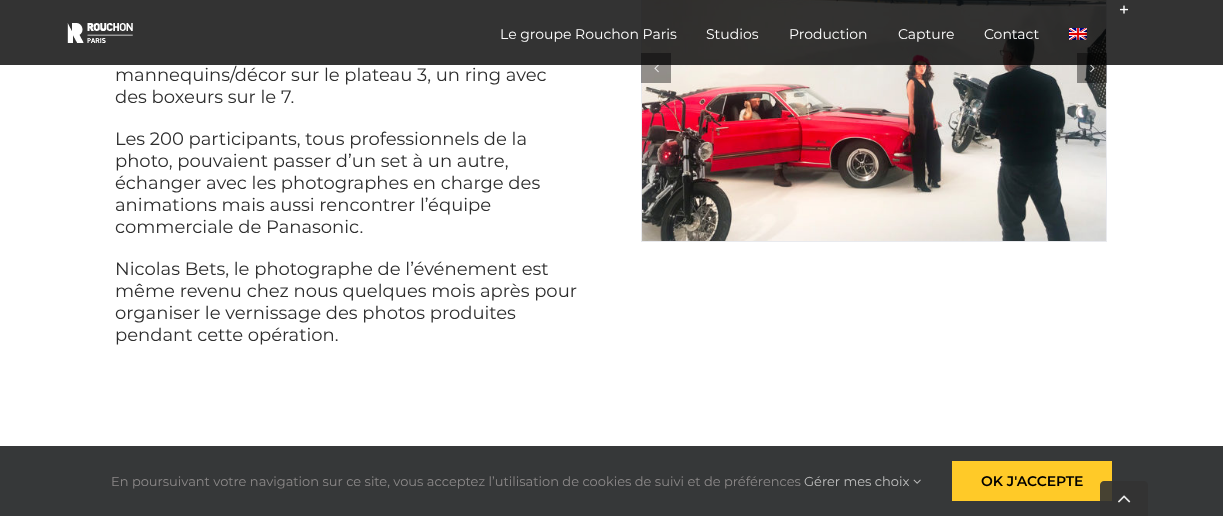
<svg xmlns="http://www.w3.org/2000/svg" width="1223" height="516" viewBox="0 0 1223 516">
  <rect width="100%" height="100%" fill="rgb(255,255,255)"/>
  <rect x="641.5" y="-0.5" width="465" height="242" fill="none" stroke="rgb(233,234,238)"/>
  <image x="642" y="0" width="464" height="241" href="pic4.png"/>
  <rect x="641" y="53" width="30" height="30" fill="rgba(0,0,0,0.4)"/>
  <image x="654" y="64" width="5" height="9" href="pic5.png"/>
  <rect x="1077" y="53" width="30" height="30" fill="rgba(0,0,0,0.4)"/>
  <image x="1090" y="64" width="5" height="9" href="pic6.png"/>
  <rect x="0" y="0" width="1223" height="65" fill="rgba(0,0,0,0.8)"/>
  <image x="67" y="23" width="66" height="20" href="pic1.png"/>
  <image x="1119" y="5" width="10" height="9" href="pic2.png"/>
  <g font-family="Montserrat" font-size="14" fill="rgb(255,255,255)">
    <text x="500" y="39">Le groupe Rouchon Paris</text>
    <text x="706" y="39">Studios</text>
    <text x="789" y="39">Production</text>
    <text x="898" y="39">Capture</text>
    <text x="984" y="39">Contact</text>
  </g>
  <image x="1069" y="28" width="18" height="12" href="pic3.png"/>
  <g font-family="Montserrat" font-size="18" fill="rgb(45,45,45)">
    <text>
      <tspan x="115" y="81">mannequins/décor sur le plateau 3, un ring avec</tspan>
      <tspan x="115" y="103">des boxeurs sur le 7.</tspan>
    </text>
    <text>
      <tspan x="115" y="145">Les 200 participants, tous professionnels de la</tspan>
      <tspan x="115" y="167">photo, pouvaient passer d’un set à un autre,</tspan>
      <tspan x="115" y="189">échanger avec les photographes en charge des</tspan>
      <tspan x="115" y="211">animations mais aussi rencontrer l’équipe</tspan>
      <tspan x="115" y="233">commerciale de Panasonic.</tspan>
    </text>
    <text>
      <tspan x="115" y="275">Nicolas Bets, le photographe de l’événement est</tspan>
      <tspan x="115" y="297">même revenu chez nous quelques mois après pour</tspan>
      <tspan x="115" y="319">organiser le vernissage des photos produites</tspan>
      <tspan x="115" y="341">pendant cette opération.</tspan>
    </text>
  </g>
  <rect x="0" y="446" width="1223" height="70" fill="rgb(54,56,57)"/>
  <text x="111" y="486" font-family="Montserrat" font-size="13" fill="rgb(140,137,137)">En poursuivant votre navigation sur ce site, vous acceptez l’utilisation de cookies de suivi et de préférences</text>
  <text x="804" y="486" font-family="Montserrat" font-size="13" fill="rgb(191,191,191)">Gérer mes choix</text>
  <image x="913" y="479" width="8" height="5" href="pic7.png"/>
  <rect x="952" y="461" width="160" height="40" fill="rgb(255,202,40)"/>
  <text x="981" y="486" font-family="Montserrat" font-size="14" font-weight="600" fill="rgb(0,0,0)">OK J'ACCEPTE</text>
  <path d="M1104 481H1144C1146 481 1148 483 1148 485V516H1100V485C1100 483 1102 481 1104 481Z" fill="rgba(51,51,51,0.9)"/>
  <image x="1118" y="495" width="13" height="8" href="pic8.png"/>
</svg>
